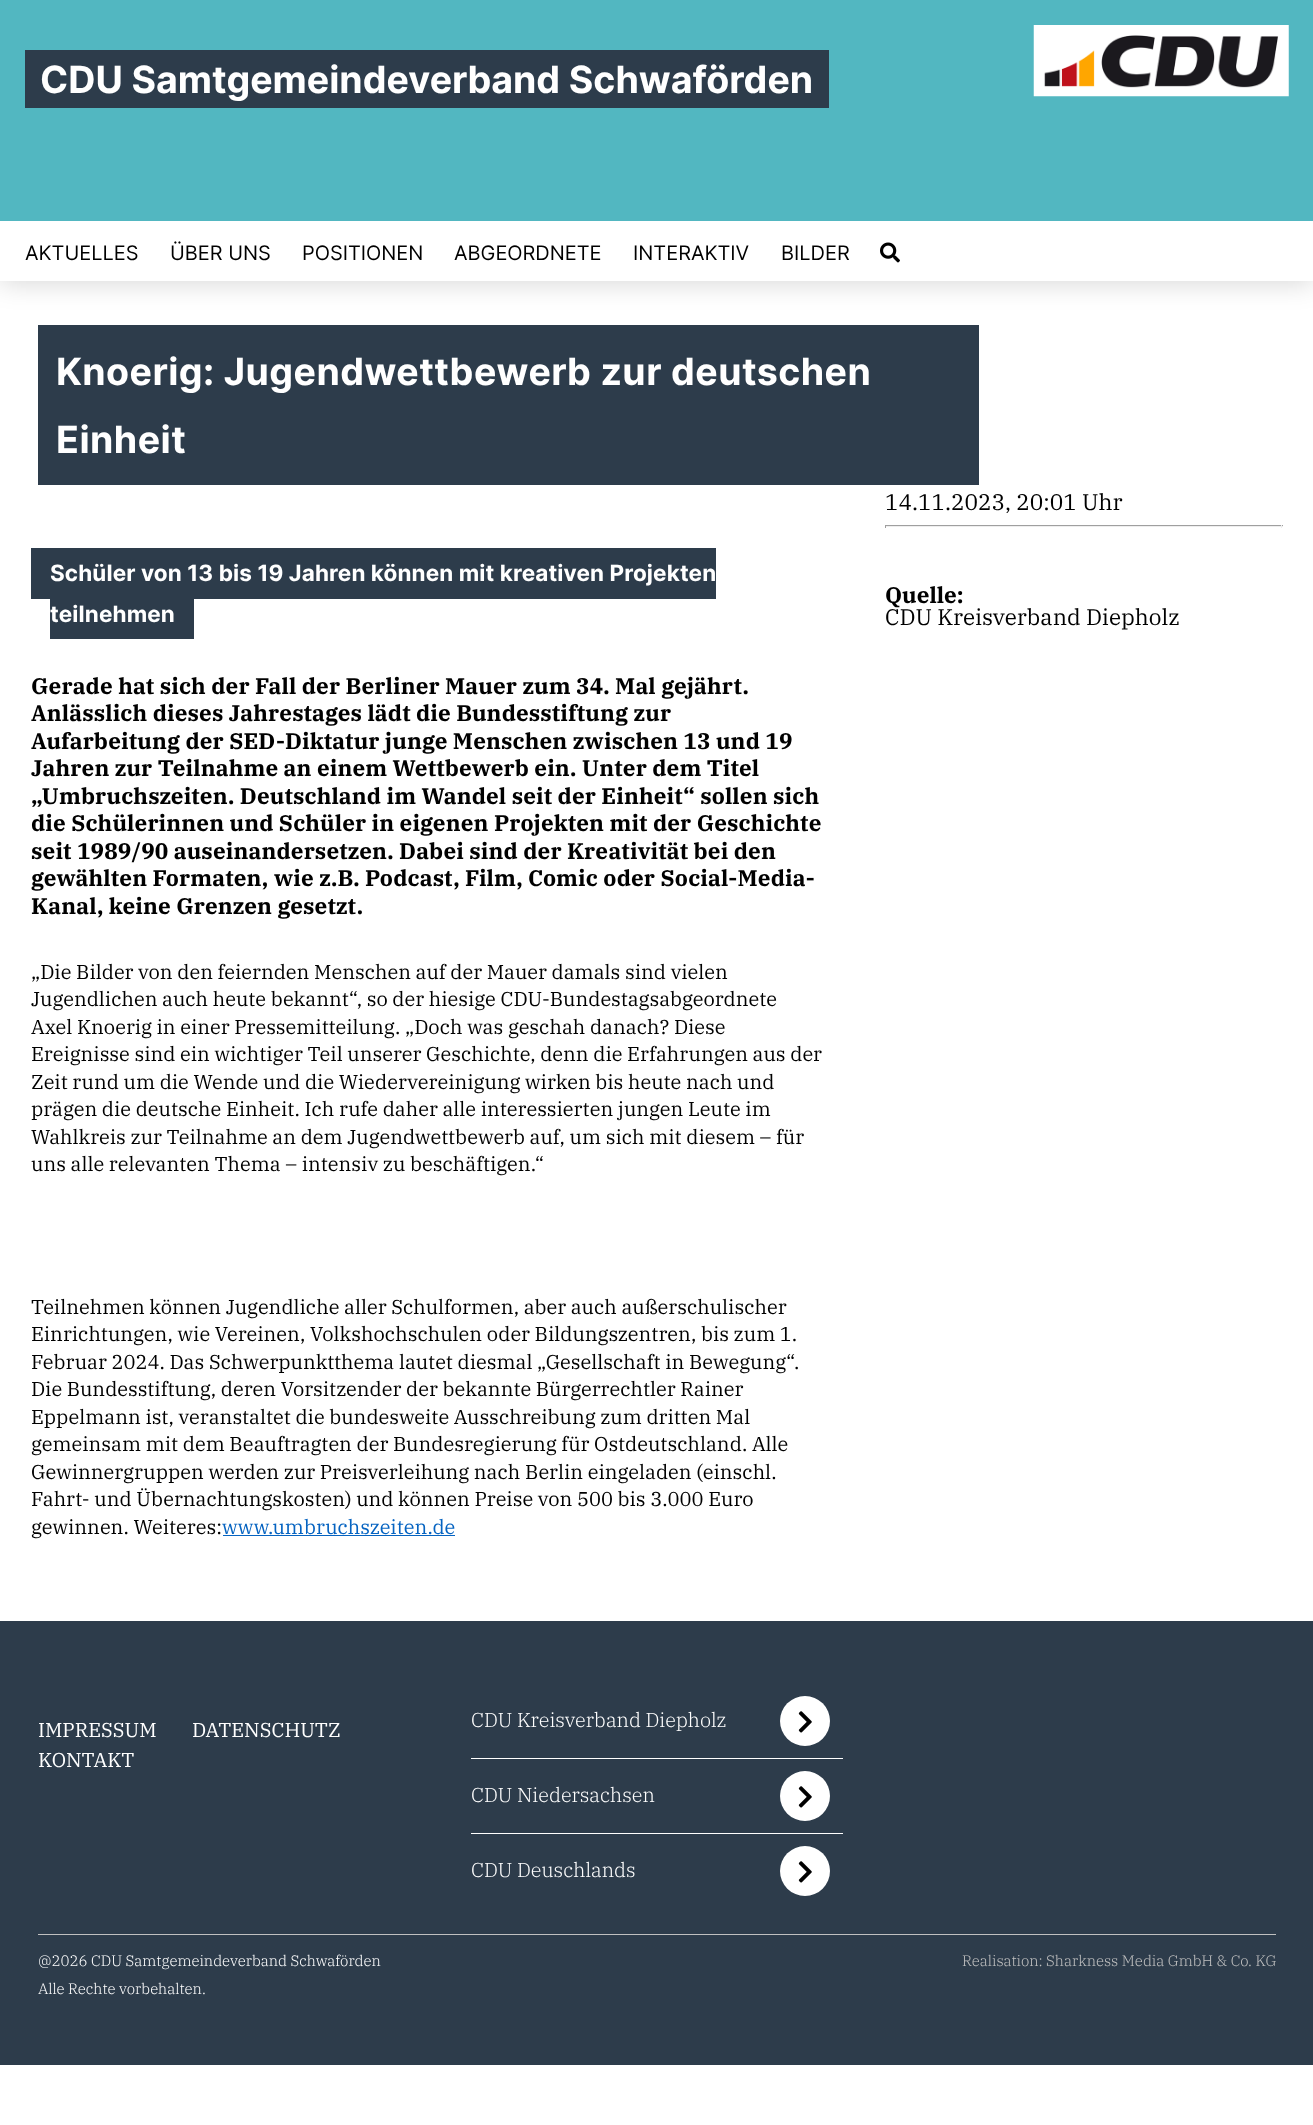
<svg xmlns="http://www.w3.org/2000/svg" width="1313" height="2125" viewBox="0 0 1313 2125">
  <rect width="100%" height="100%" fill="rgb(255,255,255)"/>
  <rect x="0" y="3" width="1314" height="281" fill="rgba(0,0,0,0.15)" filter="blur(13px)"/>
  <rect x="0" y="0" width="1313" height="221" fill="rgb(82,183,193)"/>
  <rect x="25" y="50" width="804" height="58" fill="rgb(45,60,75)"/>
  <text x="40" y="93" font-family="Inter" font-size="37.5" font-weight="bold" fill="rgb(255,255,255)">CDU Samtgemeindeverband Schwaförden</text>
  <image x="1033" y="25" width="256" height="72" href="pic1.png"/>
  <rect x="0" y="221" width="1313" height="60" fill="rgb(255,255,255)"/>
  <g font-family="Inter" font-size="20" fill="rgb(0,0,0)">
    <text x="25" y="260">AKTUELLES</text>
    <text x="170" y="260">ÜBER UNS</text>
    <text x="302" y="260">POSITIONEN</text>
    <text x="454" y="260">ABGEORDNETE</text>
    <text x="633" y="260">INTERAKTIV</text>
    <text x="781" y="260">BILDER</text>
  </g>
  <image x="880" y="242" width="20" height="21" href="pic2.png"/>
  <rect x="38" y="325" width="941" height="160" fill="rgb(45,60,75)"/>
  <g font-family="Inter" font-size="37.5" font-weight="bold" letter-spacing="0.45" fill="rgb(255,255,255)">
    <text>
      <tspan x="56" y="385">Knoerig: Jugendwettbewerb zur deutschen</tspan>
      <tspan x="56" y="453">Einheit</tspan>
    </text>
  </g>
  <rect x="31" y="548" width="685" height="51" fill="rgb(45,60,75)"/>
  <text x="50" y="581" font-family="Inter" font-size="22.5" font-weight="bold" letter-spacing="0.12" fill="rgb(255,255,255)">Schüler von 13 bis 19 Jahren können mit kreativen Projekten</text>
  <rect x="50" y="599" width="144" height="40" fill="rgb(45,60,75)"/>
  <text x="50" y="622" font-family="Inter" font-size="22.5" font-weight="bold" letter-spacing="0.12" fill="rgb(255,255,255)">teilnehmen</text>
  <g font-family="IBM Plex Serif" font-size="22.5" font-weight="bold" letter-spacing="0.12" fill="rgb(0,0,0)">
    <text>
      <tspan x="31" y="694">Gerade hat sich der Fall der Berliner Mauer zum 34. Mal gejährt.</tspan>
      <tspan x="31" y="721">Anlässlich dieses Jahrestages lädt die Bundesstiftung zur</tspan>
      <tspan x="31" y="749">Aufarbeitung der SED-Diktatur junge Menschen zwischen 13 und 19</tspan>
      <tspan x="31" y="776">Jahren zur Teilnahme an einem Wettbewerb ein. Unter dem Titel</tspan>
      <tspan x="31" y="804">„Umbruchszeiten. Deutschland im Wandel seit der Einheit“ sollen sich</tspan>
      <tspan x="31" y="831">die Schülerinnen und Schüler in eigenen Projekten mit der Geschichte</tspan>
      <tspan x="31" y="859">seit 1989/90 auseinandersetzen. Dabei sind der Kreativität bei den</tspan>
      <tspan x="31" y="886">gewählten Formaten, wie z.B. Podcast, Film, Comic oder Social-Media-</tspan>
      <tspan x="31" y="914">Kanal, keine Grenzen gesetzt.</tspan>
    </text>
  </g>
  <g font-family="IBM Plex Serif" font-size="20" fill="rgb(0,0,0)">
    <text>
      <tspan x="31" y="979">„Die Bilder von den feiernden Menschen auf der Mauer damals sind vielen</tspan>
      <tspan x="31" y="1006">Jugendlichen auch heute bekannt“, so der hiesige CDU-Bundestagsabgeordnete</tspan>
      <tspan x="31" y="1034">Axel Knoerig in einer Pressemitteilung. „Doch was geschah danach? Diese</tspan>
      <tspan x="31" y="1061">Ereignisse sind ein wichtiger Teil unserer Geschichte, denn die Erfahrungen aus der</tspan>
      <tspan x="31" y="1089">Zeit rund um die Wende und die Wiedervereinigung wirken bis heute nach und</tspan>
      <tspan x="31" y="1116">prägen die deutsche Einheit. Ich rufe daher alle interessierten jungen Leute im</tspan>
      <tspan x="31" y="1144">Wahlkreis zur Teilnahme an dem Jugendwettbewerb auf, um sich mit diesem – für</tspan>
      <tspan x="31" y="1171">uns alle relevanten Thema – intensiv zu beschäftigen.“</tspan>
    </text>
    <text>
      <tspan x="31" y="1314">Teilnehmen können Jugendliche aller Schulformen, aber auch außerschulischer</tspan>
      <tspan x="31" y="1341">Einrichtungen, wie Vereinen, Volkshochschulen oder Bildungszentren, bis zum 1.</tspan>
      <tspan x="31" y="1369">Februar 2024. Das Schwerpunktthema lautet diesmal „Gesellschaft in Bewegung“.</tspan>
      <tspan x="31" y="1396">Die Bundesstiftung, deren Vorsitzender der bekannte Bürgerrechtler Rainer</tspan>
      <tspan x="31" y="1424">Eppelmann ist, veranstaltet die bundesweite Ausschreibung zum dritten Mal</tspan>
      <tspan x="31" y="1451">gemeinsam mit dem Beauftragten der Bundesregierung für Ostdeutschland. Alle</tspan>
      <tspan x="31" y="1479">Gewinnergruppen werden zur Preisverleihung nach Berlin eingeladen (einschl.</tspan>
      <tspan x="31" y="1506">Fahrt- und Übernachtungskosten) und können Preise von 500 bis 3.000 Euro</tspan>
      <tspan x="31" y="1534">gewinnen. Weiteres:</tspan>
    </text>
  </g>
  <text x="222" y="1534" font-family="IBM Plex Serif" font-size="20" fill="rgb(5,99,193)">www.umbruchszeiten.de</text>
  <rect x="223" y="1535" width="232" height="1" fill="rgb(5,99,193)"/>
  <text x="885" y="510" font-family="IBM Plex Serif" font-size="22.5" fill="rgb(0,0,0)">14.11.2023, 20:01 Uhr</text>
  <rect x="885" y="525" width="398" height="1" fill="rgb(159,159,159)"/>
  <rect x="1281" y="525" width="1" height="3" fill="rgb(238,238,238)"/>
  <rect x="885" y="526" width="398" height="1" fill="rgb(238,238,238)"/>
  <rect x="885" y="525" width="1" height="3" fill="rgb(159,159,159)"/>
  <text x="885" y="603" font-family="IBM Plex Serif" font-size="22.5" font-weight="bold" fill="rgb(0,0,0)">Quelle:</text>
  <text x="885" y="625" font-family="IBM Plex Serif" font-size="22.5" fill="rgb(0,0,0)">CDU Kreisverband Diepholz</text>
  <rect x="0" y="1621" width="1313" height="444" fill="rgb(45,60,75)"/>
  <g font-family="IBM Plex Serif" font-size="20" fill="rgb(255,255,255)">
    <text x="38" y="1737">IMPRESSUM</text>
    <text x="192" y="1737">DATENSCHUTZ</text>
    <text x="38" y="1767">KONTAKT</text>
  </g>
  <rect x="471" y="1758" width="372" height="1" fill="rgb(255,255,255)"/>
  <text x="471" y="1727" font-family="IBM Plex Serif" font-size="20" font-weight="300" fill="rgb(255,255,255)">CDU Kreisverband Diepholz</text>
  <circle cx="805" cy="1721" r="25" fill="rgb(255,255,255)"/>
  <image x="798" y="1711" width="14" height="22" href="pic3.png"/>
  <rect x="471" y="1833" width="372" height="1" fill="rgb(255,255,255)"/>
  <text x="471" y="1802" font-family="IBM Plex Serif" font-size="20" font-weight="300" fill="rgb(255,255,255)">CDU Niedersachsen</text>
  <circle cx="805" cy="1796" r="25" fill="rgb(255,255,255)"/>
  <image x="798" y="1786" width="14" height="22" href="pic3.png"/>
  <text x="471" y="1877" font-family="IBM Plex Serif" font-size="20" font-weight="300" fill="rgb(255,255,255)">CDU Deuschlands</text>
  <circle cx="805" cy="1871" r="25" fill="rgb(255,255,255)"/>
  <image x="798" y="1861" width="14" height="22" href="pic3.png"/>
  <rect x="38" y="1934" width="1238" height="1" fill="rgb(192,192,192)"/>
  <g font-family="IBM Plex Serif" font-size="15" font-weight="300" fill="rgb(255,255,255)">
    <text>
      <tspan x="38" y="1966">@2026 CDU Samtgemeindeverband Schwaförden</tspan>
      <tspan x="38" y="1994">Alle Rechte vorbehalten.</tspan>
    </text>
  </g>
  <text x="962" y="1966" font-family="IBM Plex Serif" font-size="15" font-weight="300" fill="rgb(192,192,192)">Realisation: Sharkness Media GmbH &amp; Co. KG</text>
</svg>
